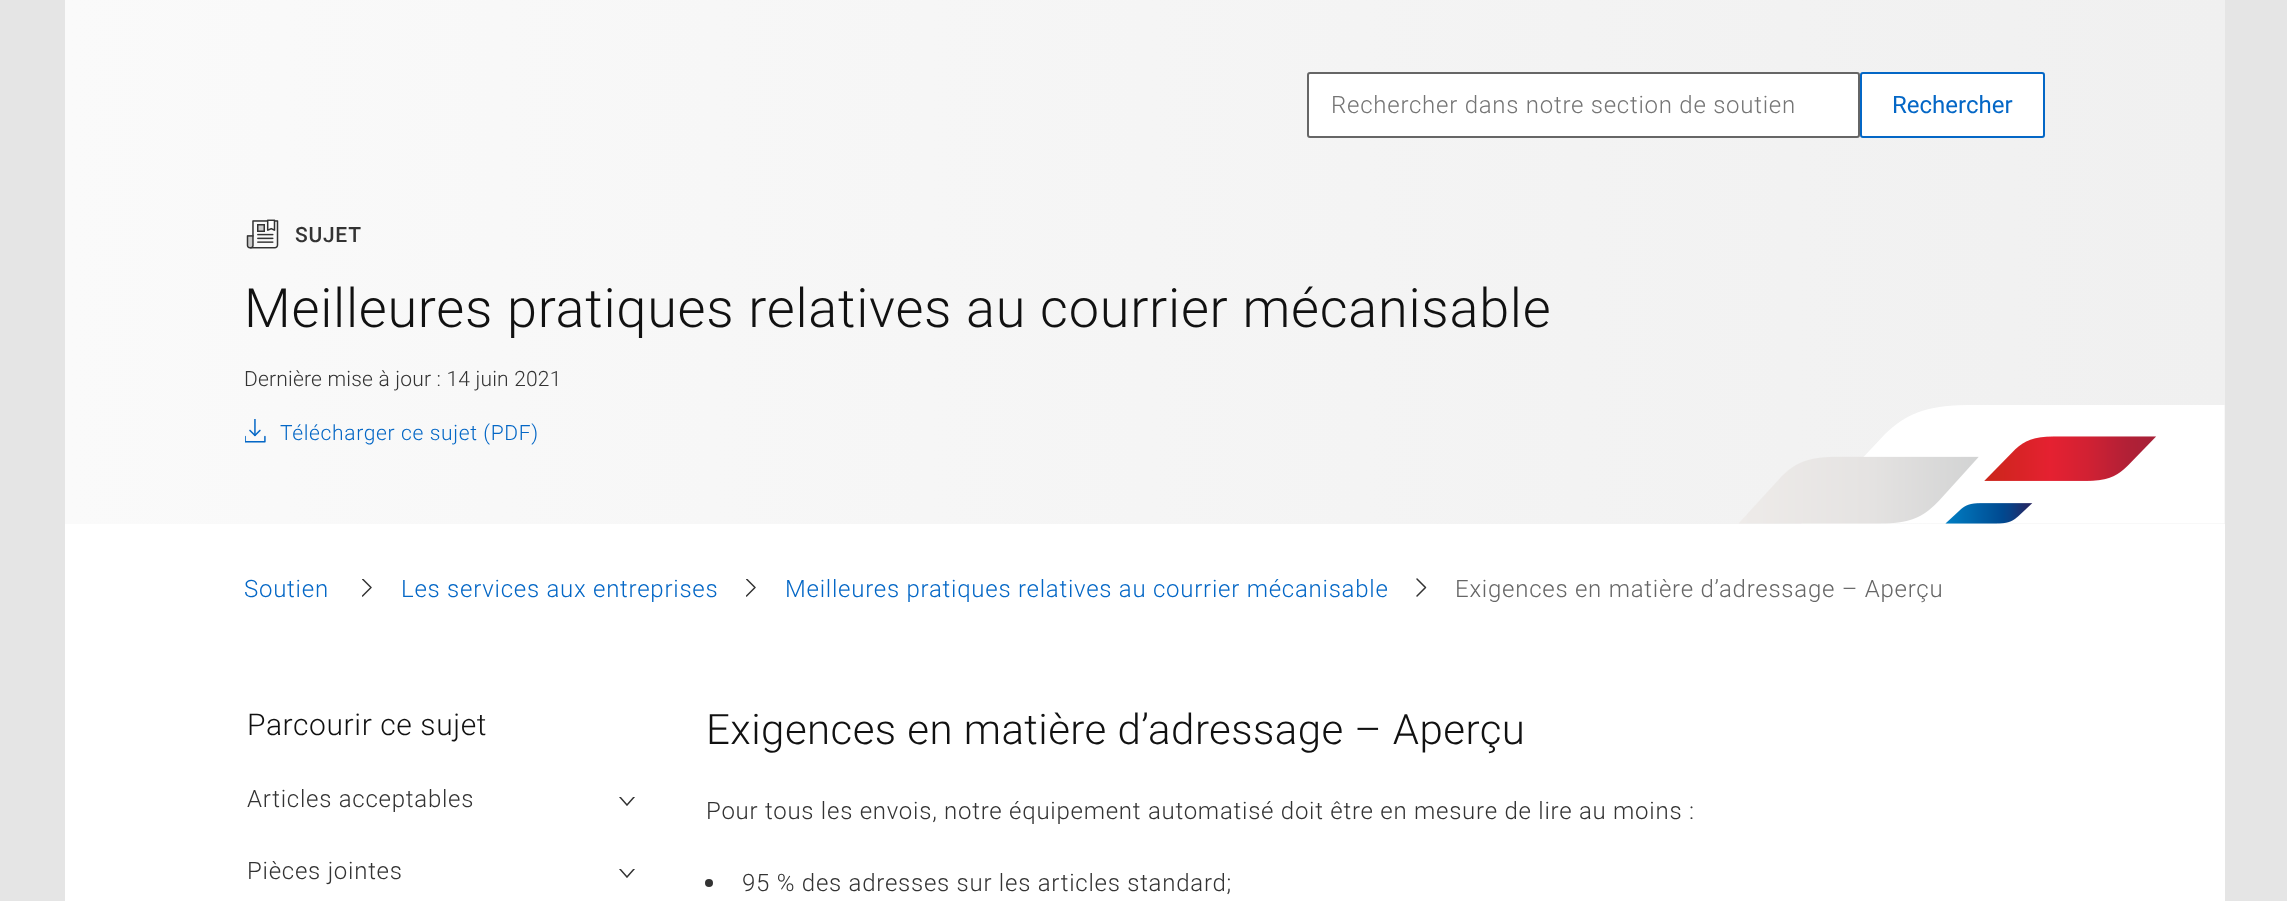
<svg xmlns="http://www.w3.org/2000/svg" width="2287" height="901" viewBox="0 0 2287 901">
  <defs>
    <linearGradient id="g1" gradientUnits="userSpaceOnUse" x1="2225" y1="262" x2="65" y2="262"><stop offset="0" stop-color="rgb(240,240,240)"/><stop offset="1" stop-color="rgb(250,250,250)"/></linearGradient>
    <clipPath id="clip1"><rect x="362" y="579" width="10" height="18"/></clipPath>
    <clipPath id="clip2"><rect x="746" y="579" width="10" height="18"/></clipPath>
    <clipPath id="clip3"><rect x="618" y="797" width="18" height="9"/></clipPath>
    <clipPath id="clip4"><rect x="618" y="869" width="18" height="9"/></clipPath>
  </defs>
  <rect width="100%" height="100%" fill="rgb(229,229,229)"/>
  <rect x="65" y="524" width="2160" height="377" fill="rgb(255,255,255)"/>
  <rect x="65" y="0" width="2160" height="524" fill="url(#g1)"/>
  <rect x="1308" y="73" width="551" height="64" rx="2" fill="rgb(255,255,255)" stroke="rgb(102,102,102)" stroke-width="2"/>
  <text x="1331" y="113" font-family="Roboto" font-size="24" font-weight="300" letter-spacing="0.75" fill="rgb(117,117,117)">Rechercher dans notre section de soutien</text>
  <rect x="1861" y="73" width="183" height="64" rx="2" fill="rgb(255,255,255)" stroke="rgb(4,103,198)" stroke-width="2"/>
  <text x="1892" y="113" font-family="Roboto" font-size="24" fill="rgb(4,103,198)">Rechercher</text>
  <image x="246" y="219" width="33" height="30" href="pic1.png"/>
  <text x="295" y="242" font-family="Roboto" font-size="21" font-weight="500" letter-spacing="0.75" fill="rgb(51,51,51)">SUJET</text>
  <text x="244" y="327" font-family="Roboto" font-size="54" font-weight="300" letter-spacing="0.75" fill="rgb(17,17,17)">Meilleures pratiques relatives au courrier mécanisable</text>
  <text x="244" y="386" font-family="Roboto" font-size="21" font-weight="300" letter-spacing="0.2" fill="rgb(51,51,51)">Dernière mise à jour : 14 juin 2021</text>
  <image x="245" y="419" width="21" height="24" href="pic2.png"/>
  <text x="280" y="440" font-family="Roboto" font-size="21" font-weight="300" letter-spacing="0.65" fill="rgb(4,103,198)">Télécharger ce sujet (PDF)</text>
  <image x="1739" y="405" width="486" height="119" href="pic3.png"/>
  <text x="244" y="597" font-family="Roboto" font-size="24" font-weight="300" letter-spacing="0.75" fill="rgb(4,103,198)">Soutien</text>
  <g clip-path="url(#clip1)">
    <path d="M362.5 579L371 587.5L362.5 596" fill="none" stroke="rgb(51,51,51)" stroke-width="1.5" stroke-linecap="round" stroke-linejoin="round"/>
  </g>
  <text x="401" y="597" font-family="Roboto" font-size="24" font-weight="300" letter-spacing="0.75" fill="rgb(4,103,198)">Les services aux entreprises</text>
  <g clip-path="url(#clip2)">
    <path d="M746.5 579L755 587.5L746.5 596" fill="none" stroke="rgb(51,51,51)" stroke-width="1.5" stroke-linecap="round" stroke-linejoin="round"/>
  </g>
  <text x="785" y="597" font-family="Roboto" font-size="24" font-weight="300" letter-spacing="0.75" fill="rgb(4,103,198)">Meilleures pratiques relatives au courrier mécanisable</text>
  <path d="M1417 579L1425.5 587.5L1417 596" fill="none" stroke="rgb(51,51,51)" stroke-width="1.5" stroke-linecap="round" stroke-linejoin="round"/>
  <text x="1455" y="597" font-family="Roboto" font-size="24" font-weight="300" letter-spacing="0.75" fill="rgb(102,102,102)">Exigences en matière d’adressage – Aperçu</text>
  <text x="247" y="735" font-family="Roboto" font-size="30" font-weight="300" letter-spacing="0.6" fill="rgb(17,17,17)">Parcourir ce sujet</text>
  <text x="247" y="807" font-family="Roboto" font-size="24" font-weight="300" letter-spacing="0.75" fill="rgb(51,51,51)">Articles acceptables</text>
  <g clip-path="url(#clip3)">
    <path d="M619.5 796.5L627 805L634.5 796.5" fill="none" stroke="rgb(51,51,51)" stroke-width="1.5" stroke-linecap="round"/>
  </g>
  <text x="247" y="879" font-family="Roboto" font-size="24" font-weight="300" letter-spacing="0.75" fill="rgb(51,51,51)">Pièces jointes</text>
  <g clip-path="url(#clip4)">
    <path d="M619.5 868.5L627 877L634.5 868.5" fill="none" stroke="rgb(51,51,51)" stroke-width="1.5" stroke-linecap="round"/>
  </g>
  <text x="706" y="744" font-family="Roboto" font-size="42" font-weight="300" letter-spacing="0.45" fill="rgb(17,17,17)">Exigences en matière d’adressage – Aperçu</text>
  <text x="706" y="819" font-family="Roboto" font-size="24" font-weight="300" letter-spacing="0.75" fill="rgb(51,51,51)">Pour tous les envois, notre équipement automatisé doit être en mesure de lire au moins :</text>
  <circle cx="709" cy="883" r="4" fill="rgb(51,51,51)"/>
  <text x="742" y="891" font-family="Roboto" font-size="24" font-weight="300" letter-spacing="0.75" fill="rgb(51,51,51)">95 % des adresses sur les articles standard;</text>
</svg>
